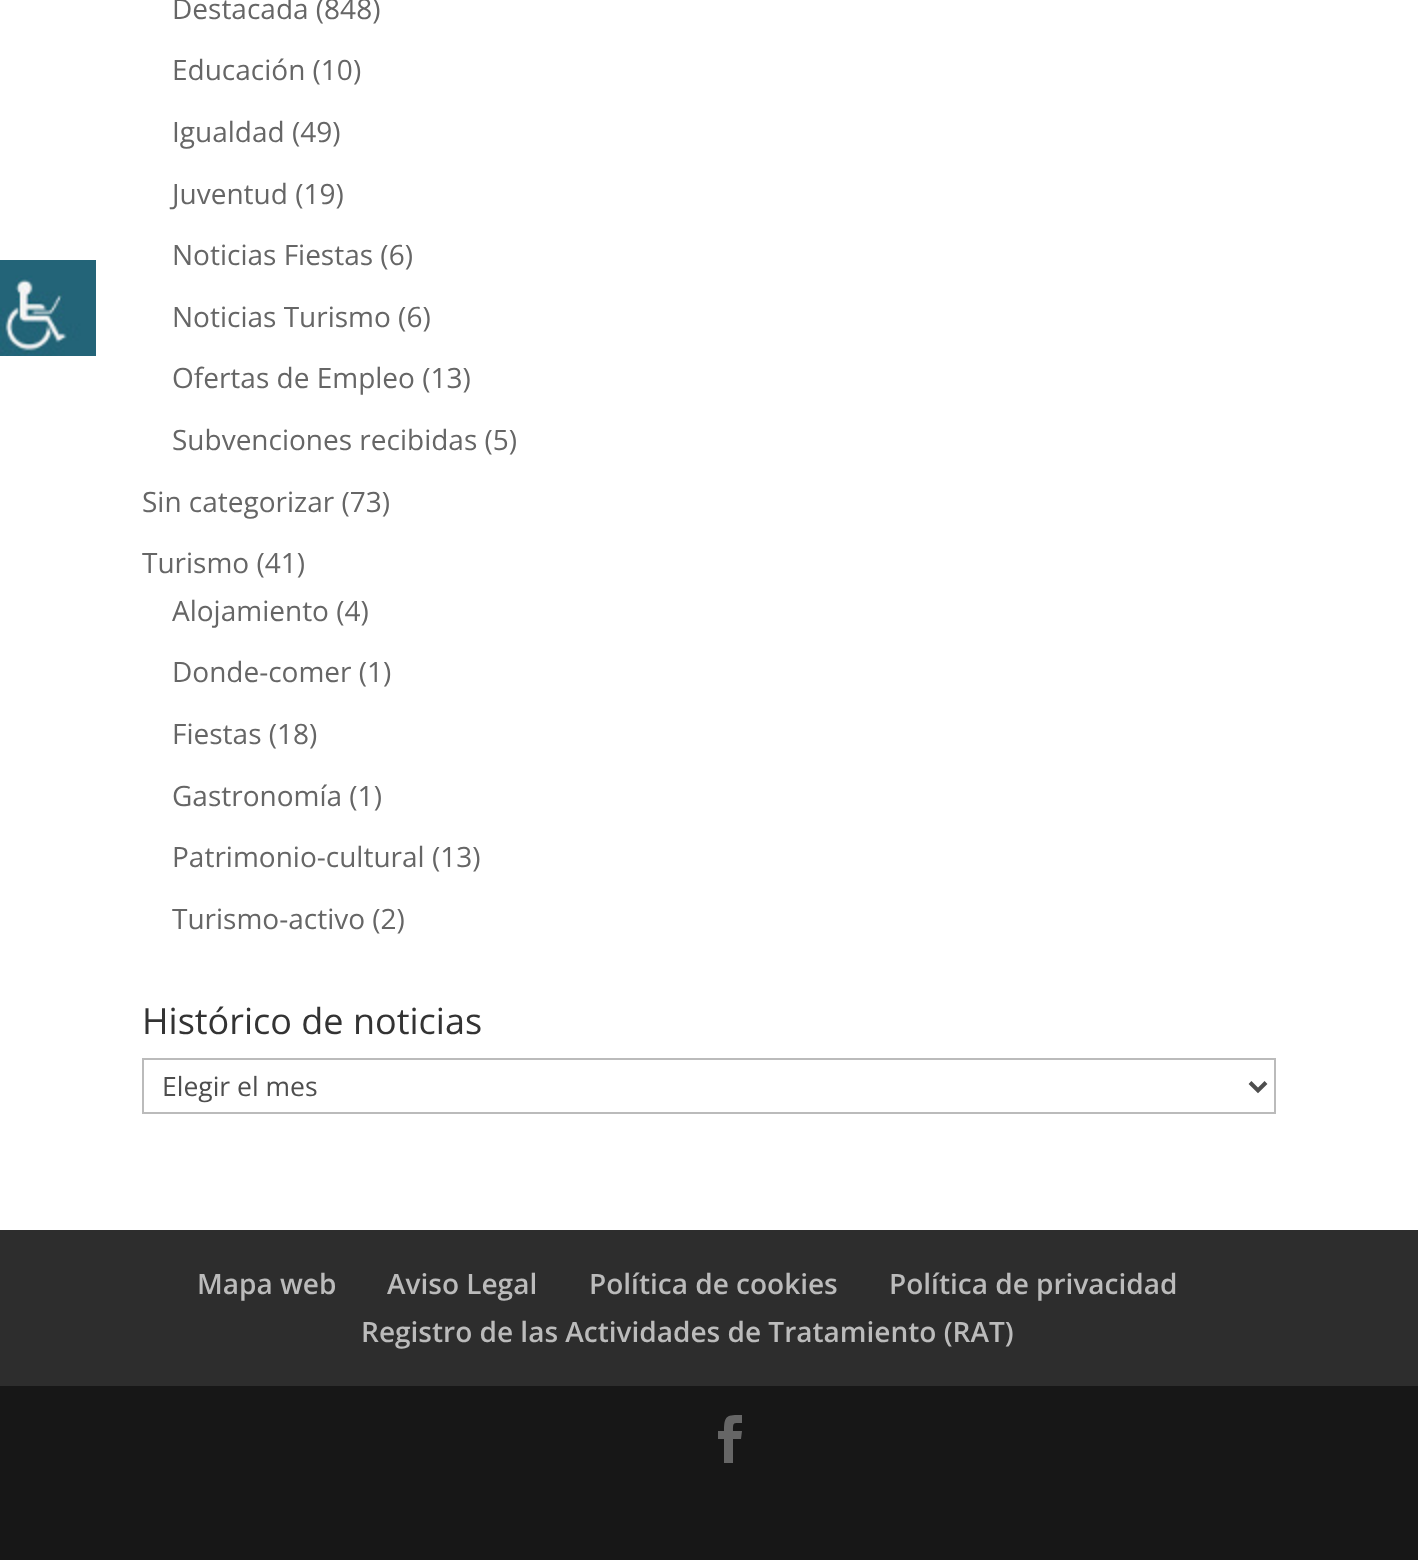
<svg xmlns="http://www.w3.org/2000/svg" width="1418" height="1560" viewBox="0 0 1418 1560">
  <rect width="100%" height="100%" fill="rgb(255,255,255)"/>
  <image x="0" y="260" width="96" height="96" href="pic1.png"/>
  <g font-family="Open Sans" font-size="28" fill="rgb(102,102,102)">
    <text x="172" y="19">Destacada (848)</text>
    <text x="172" y="80">Educación (10)</text>
    <text x="172" y="142">Igualdad (49)</text>
    <text x="172" y="204">Juventud (19)</text>
    <text x="172" y="265">Noticias Fiestas (6)</text>
    <text x="172" y="327">Noticias Turismo (6)</text>
    <text x="172" y="388">Ofertas de Empleo (13)</text>
    <text x="172" y="450">Subvenciones recibidas (5)</text>
    <text x="142" y="512">Sin categorizar (73)</text>
    <text x="142" y="573">Turismo (41)</text>
    <text x="172" y="621">Alojamiento (4)</text>
    <text x="172" y="682">Donde-comer (1)</text>
    <text x="172" y="744">Fiestas (18)</text>
    <text x="172" y="806">Gastronomía (1)</text>
    <text x="172" y="867">Patrimonio-cultural (13)</text>
    <text x="172" y="929">Turismo-activo (2)</text>
  </g>
  <text x="142" y="1034" font-family="Open Sans" font-size="36" fill="rgb(51,51,51)">Histórico de noticias</text>
  <rect x="143" y="1059" width="1132" height="54" fill="none" stroke="rgb(187,187,187)" stroke-width="2"/>
  <path d="M1250 1082.5L1258 1090.5L1266 1082.5" fill="none" stroke="rgb(78,78,78)" stroke-width="4"/>
  <text x="162" y="1096" font-family="Open Sans" font-size="26.5" fill="rgb(78,78,78)">Elegir el mes</text>
  <rect x="0" y="1230" width="1418" height="156" fill="rgb(45,45,45)"/>
  <g font-family="Open Sans" font-size="28" font-weight="600" fill="rgb(187,187,187)">
    <text x="197" y="1294">Mapa web</text>
    <text x="387" y="1294">Aviso Legal</text>
    <text x="589" y="1294">Política de cookies</text>
    <text x="889" y="1294">Política de privacidad</text>
    <text x="361" y="1342">Registro de las Actividades de Tratamiento (RAT)</text>
  </g>
  <rect x="0" y="1386" width="1418" height="174" fill="rgb(23,23,23)"/>
  <path d="M724 1463H733V1439H741L742 1431H733C733 1422 733 1423 742 1423V1415C727 1415 724 1415 724 1431H718V1439H724Z" fill="rgb(102,102,102)"/>
</svg>
